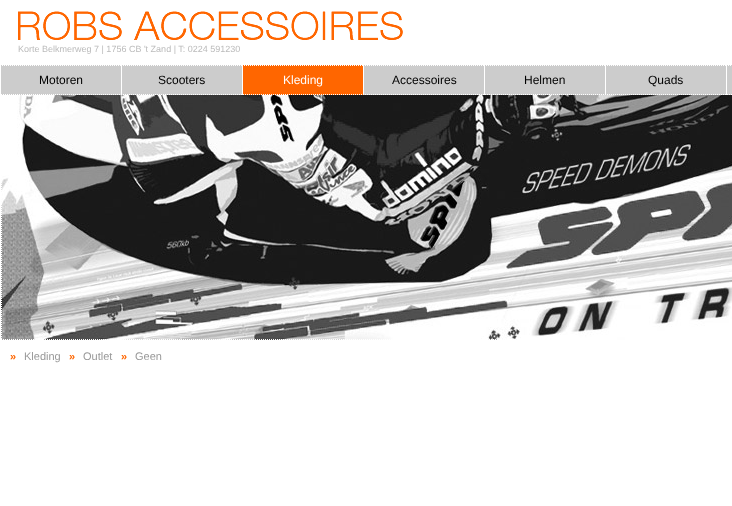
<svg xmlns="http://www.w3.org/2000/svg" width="732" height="506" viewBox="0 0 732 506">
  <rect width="100%" height="100%" fill="rgb(255,255,255)"/>
  <image x="18" y="11" width="385" height="29" href="pic1.png"/>
  <text x="18" y="52" font-family="Liberation Sans" font-size="9" fill="rgb(187,187,187)">Korte Belkmerweg 7 | 1756 CB 't Zand | T: 0224 591230</text>
  <rect x="1" y="65" width="120" height="30" fill="rgb(204,204,204)"/>
  <image x="2" y="65" width="119" height="1" href="pic2.png"/>
  <text x="39" y="84" font-family="Liberation Sans" font-size="12" fill="rgb(0,0,0)">Motoren</text>
  <rect x="122" y="65" width="120" height="30" fill="rgb(204,204,204)"/>
  <image x="123" y="65" width="119" height="1" href="pic2.png"/>
  <text x="158" y="84" font-family="Liberation Sans" font-size="12" fill="rgb(0,0,0)">Scooters</text>
  <rect x="243" y="65" width="120" height="30" fill="rgb(255,102,0)"/>
  <image x="244" y="65" width="119" height="1" href="pic3.png"/>
  <text x="283" y="84" font-family="Liberation Sans" font-size="12" fill="rgb(255,255,255)">Kleding</text>
  <rect x="364" y="65" width="120" height="30" fill="rgb(204,204,204)"/>
  <image x="365" y="65" width="119" height="1" href="pic2.png"/>
  <text x="392" y="84" font-family="Liberation Sans" font-size="12" fill="rgb(0,0,0)">Accessoires</text>
  <rect x="485" y="65" width="120" height="30" fill="rgb(204,204,204)"/>
  <image x="486" y="65" width="119" height="1" href="pic2.png"/>
  <text x="524" y="84" font-family="Liberation Sans" font-size="12" fill="rgb(0,0,0)">Helmen</text>
  <rect x="606" y="65" width="120" height="30" fill="rgb(204,204,204)"/>
  <image x="607" y="65" width="119" height="1" href="pic2.png"/>
  <text x="648" y="84" font-family="Liberation Sans" font-size="12" fill="rgb(0,0,0)">Quads</text>
  <rect x="727" y="65" width="5" height="30" fill="rgb(204,204,204)"/>
  <image x="728" y="65" width="3" height="1" href="pic4.png"/>
  <image x="1" y="94" width="731" height="1" href="pic5.png"/>
  <image x="1" y="95" width="731" height="245" href="pic6.png"/>
  <image x="1" y="178" width="1" height="161" href="pic7.png"/>
  <image x="1" y="339" width="519" height="1" href="pic8.png"/>
  <text x="10" y="360" font-family="Liberation Sans" font-size="11" font-weight="bold" fill="rgb(255,102,0)">»</text>
  <text x="24" y="360" font-family="Liberation Sans" font-size="11" fill="rgb(153,153,153)">Kleding</text>
  <text x="69" y="360" font-family="Liberation Sans" font-size="11" font-weight="bold" fill="rgb(255,102,0)">»</text>
  <text x="83" y="360" font-family="Liberation Sans" font-size="11" fill="rgb(153,153,153)">Outlet</text>
  <text x="121" y="360" font-family="Liberation Sans" font-size="11" font-weight="bold" fill="rgb(255,102,0)">»</text>
  <text x="135" y="360" font-family="Liberation Sans" font-size="11" fill="rgb(153,153,153)">Geen</text>
</svg>
